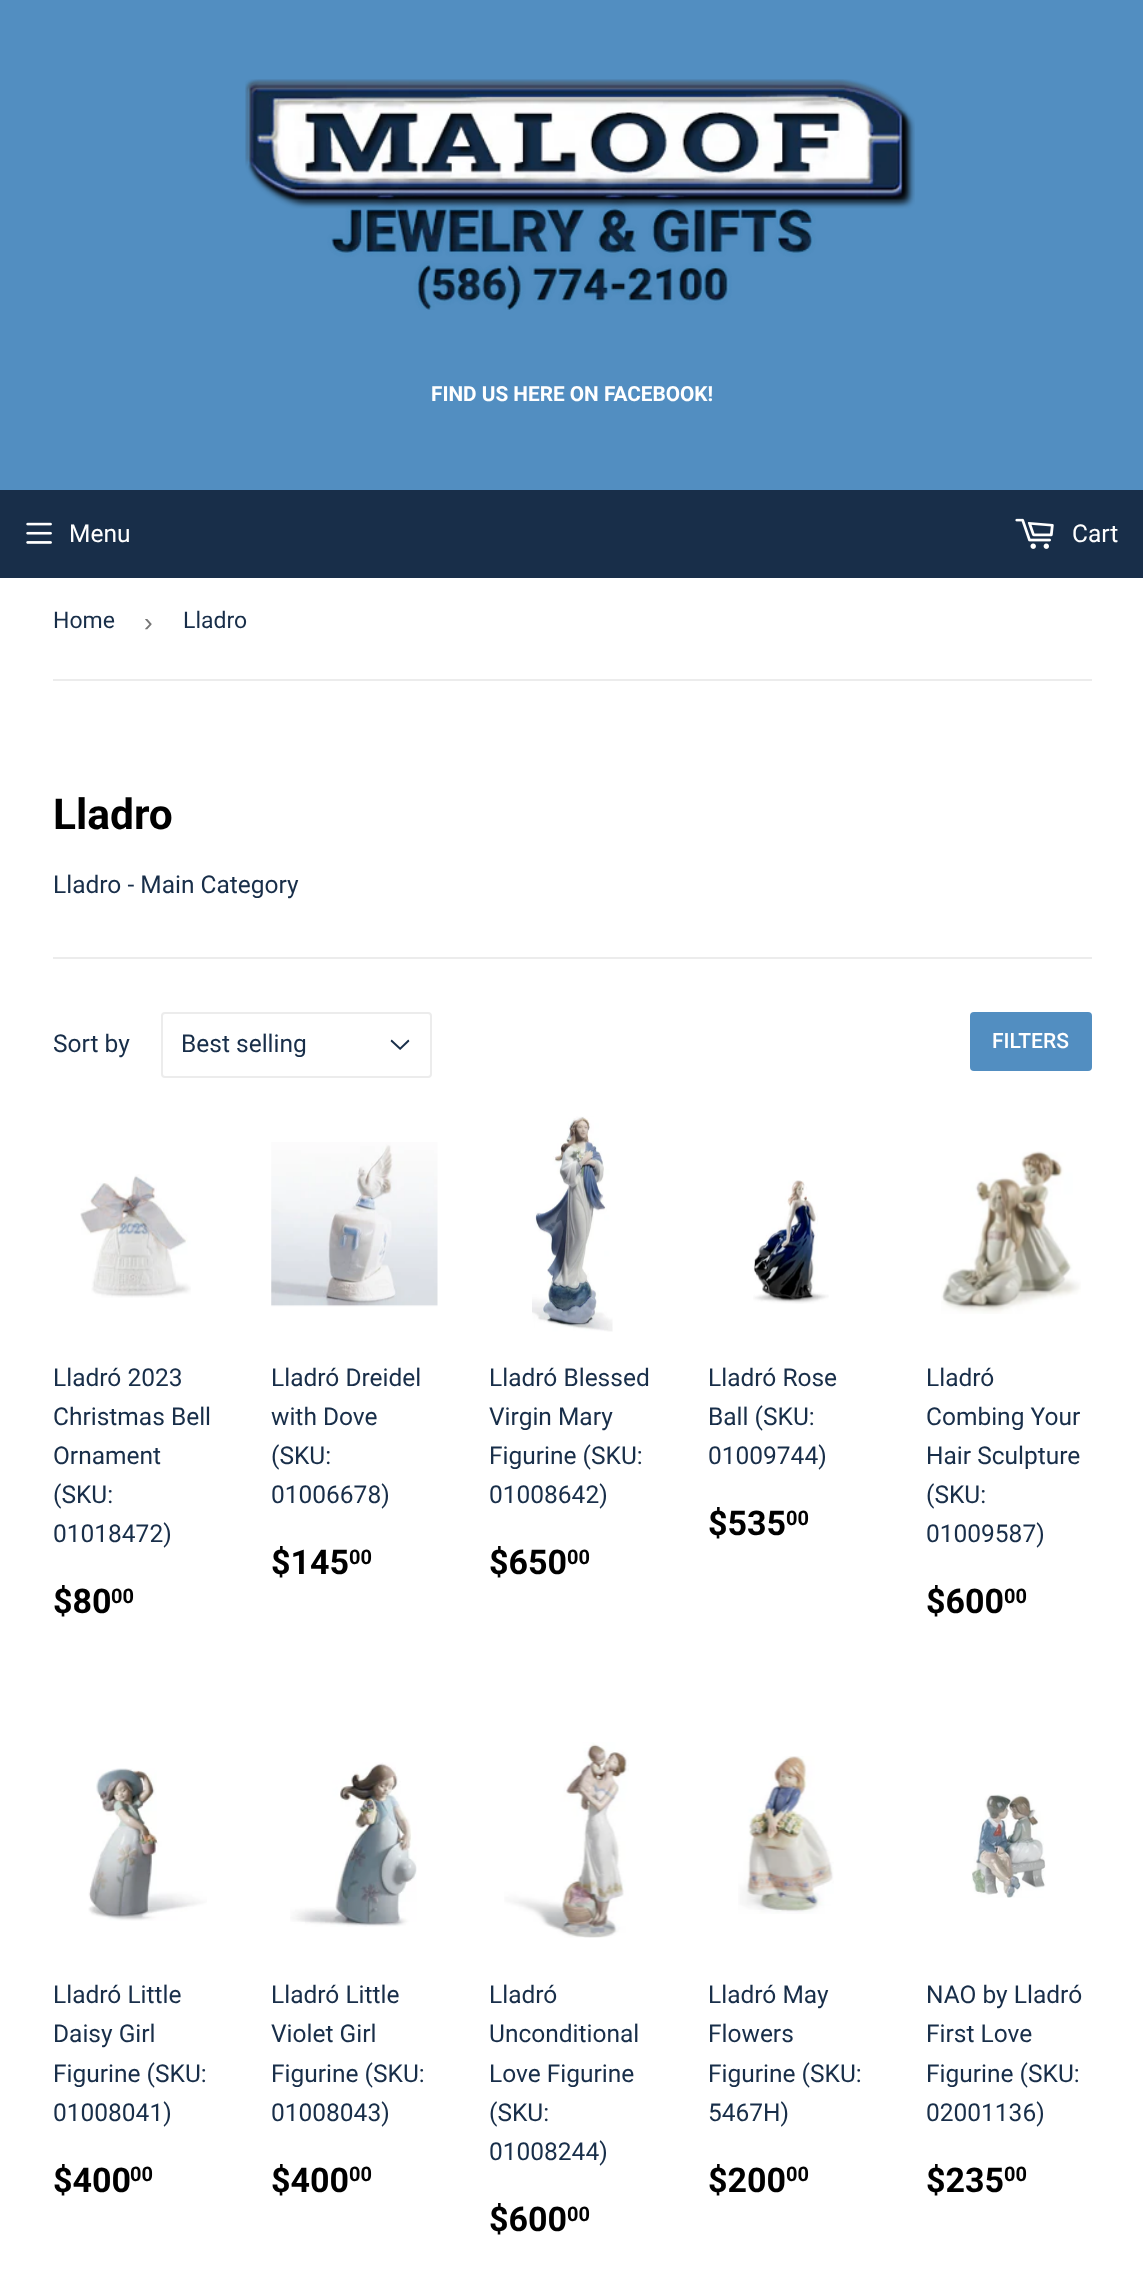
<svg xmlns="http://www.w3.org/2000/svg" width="1143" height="2269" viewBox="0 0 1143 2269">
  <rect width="100%" height="100%" fill="rgb(255,255,255)"/>
  <rect x="0" y="0" width="1143" height="490" fill="rgb(82,142,193)"/>
  <image x="245" y="79" width="670" height="231" href="pic1.png"/>
  <text x="431" y="401" font-family="Roboto" font-size="20.75" font-weight="bold" fill="rgb(255,255,255)">FIND US HERE ON FACEBOOK!</text>
  <rect x="0" y="490" width="1143" height="88" fill="rgb(24,46,73)"/>
  <image x="26" y="522" width="26" height="22" href="pic2.png"/>
  <text x="69" y="542" font-family="Roboto" font-size="24.5" fill="rgb(255,255,255)">Menu</text>
  <image x="1015" y="518" width="39" height="31" href="pic3.png"/>
  <text x="1072" y="542" font-family="Roboto" font-size="24.5" fill="rgb(255,255,255)">Cart</text>
  <rect x="53" y="679" width="1039" height="2" fill="rgb(236,236,236)"/>
  <text x="53" y="628" font-family="Roboto" font-size="23" fill="rgb(24,46,73)">Home</text>
  <text x="144" y="631" font-family="Liberation Sans" font-size="26" fill="rgb(118,118,118)">›</text>
  <text x="183" y="628" font-family="Roboto" font-size="23" fill="rgb(24,46,73)">Lladro</text>
  <text x="53" y="829" font-family="Roboto" font-size="42.5" font-weight="bold" fill="rgb(0,0,0)">Lladro</text>
  <text x="53" y="893" font-family="Roboto" font-size="24.5" fill="rgb(24,46,73)">Lladro - Main Category</text>
  <rect x="53" y="957" width="1039" height="2" fill="rgb(236,236,236)"/>
  <text x="53" y="1052" font-family="Roboto" font-size="24.5" fill="rgb(24,46,73)">Sort by</text>
  <image x="390" y="1039" width="20" height="11" href="pic4.png"/>
  <rect x="162" y="1013" width="269" height="64" rx="3" fill="none" stroke="rgb(236,236,236)" stroke-width="2"/>
  <text x="181" y="1052" font-family="Roboto" font-size="24.5" fill="rgb(24,46,73)">Best selling</text>
  <rect x="970" y="1012" width="122" height="59" rx="4" fill="rgb(82,142,193)"/>
  <text x="992" y="1048" font-family="Roboto" font-size="21" font-weight="500" fill="rgb(255,255,255)">FILTERS</text>
  <image x="80" y="1174" width="111" height="124" href="pic5.png"/>
  <g font-family="Roboto" font-size="24.5" fill="rgb(24,46,73)">
    <text>
      <tspan x="53" y="1386">Lladró 2023</tspan>
      <tspan x="53" y="1425">Christmas Bell</tspan>
      <tspan x="53" y="1464">Ornament</tspan>
      <tspan x="53" y="1503">(SKU:</tspan>
      <tspan x="53" y="1542">01018472)</tspan>
    </text>
  </g>
  <text x="53" y="1613" font-family="Roboto" font-size="34" font-weight="bold" fill="rgb(0,0,0)">$80</text>
  <text x="111" y="1603" font-family="Roboto" font-size="20" font-weight="bold" fill="rgb(0,0,0)">00</text>
  <image x="271" y="1142" width="167" height="165" href="pic6.png"/>
  <g font-family="Roboto" font-size="24.5" fill="rgb(24,46,73)">
    <text>
      <tspan x="271" y="1386">Lladró Dreidel</tspan>
      <tspan x="271" y="1425">with Dove</tspan>
      <tspan x="271" y="1464">(SKU:</tspan>
      <tspan x="271" y="1503">01006678)</tspan>
    </text>
  </g>
  <text x="271" y="1574" font-family="Roboto" font-size="34" font-weight="bold" fill="rgb(0,0,0)">$145</text>
  <text x="349" y="1564" font-family="Roboto" font-size="20" font-weight="bold" fill="rgb(0,0,0)">00</text>
  <image x="532" y="1116" width="81" height="216" href="pic7.png"/>
  <g font-family="Roboto" font-size="24.5" fill="rgb(24,46,73)">
    <text>
      <tspan x="489" y="1386">Lladró Blessed</tspan>
      <tspan x="489" y="1425">Virgin Mary</tspan>
      <tspan x="489" y="1464">Figurine (SKU:</tspan>
      <tspan x="489" y="1503">01008642)</tspan>
    </text>
  </g>
  <text x="489" y="1574" font-family="Roboto" font-size="34" font-weight="bold" fill="rgb(0,0,0)">$650</text>
  <text x="567" y="1564" font-family="Roboto" font-size="20" font-weight="bold" fill="rgb(0,0,0)">00</text>
  <image x="753" y="1180" width="76" height="124" href="pic8.png"/>
  <g font-family="Roboto" font-size="24.5" fill="rgb(24,46,73)">
    <text>
      <tspan x="708" y="1386">Lladró Rose</tspan>
      <tspan x="708" y="1425">Ball (SKU:</tspan>
      <tspan x="708" y="1464">01009744)</tspan>
    </text>
  </g>
  <text x="708" y="1535" font-family="Roboto" font-size="34" font-weight="bold" fill="rgb(0,0,0)">$535</text>
  <text x="786" y="1525" font-family="Roboto" font-size="20" font-weight="bold" fill="rgb(0,0,0)">00</text>
  <image x="941" y="1151" width="140" height="163" href="pic9.png"/>
  <g font-family="Roboto" font-size="24.5" fill="rgb(24,46,73)">
    <text>
      <tspan x="926" y="1386">Lladró</tspan>
      <tspan x="926" y="1425">Combing Your</tspan>
      <tspan x="926" y="1464">Hair Sculpture</tspan>
      <tspan x="926" y="1503">(SKU:</tspan>
      <tspan x="926" y="1542">01009587)</tspan>
    </text>
  </g>
  <text x="926" y="1613" font-family="Roboto" font-size="34" font-weight="bold" fill="rgb(0,0,0)">$600</text>
  <text x="1004" y="1603" font-family="Roboto" font-size="20" font-weight="bold" fill="rgb(0,0,0)">00</text>
  <image x="88" y="1768" width="119" height="153" href="pic10.png"/>
  <g font-family="Roboto" font-size="24.5" fill="rgb(24,46,73)">
    <text>
      <tspan x="53" y="2003">Lladró Little</tspan>
      <tspan x="53" y="2042">Daisy Girl</tspan>
      <tspan x="53" y="2082">Figurine (SKU:</tspan>
      <tspan x="53" y="2121">01008041)</tspan>
    </text>
  </g>
  <text x="53" y="2192" font-family="Roboto" font-size="34" font-weight="bold" fill="rgb(0,0,0)">$400</text>
  <text x="130" y="2181" font-family="Roboto" font-size="20" font-weight="bold" fill="rgb(0,0,0)">00</text>
  <image x="290" y="1762" width="127" height="165" href="pic11.png"/>
  <g font-family="Roboto" font-size="24.5" fill="rgb(24,46,73)">
    <text>
      <tspan x="271" y="2003">Lladró Little</tspan>
      <tspan x="271" y="2042">Violet Girl</tspan>
      <tspan x="271" y="2082">Figurine (SKU:</tspan>
      <tspan x="271" y="2121">01008043)</tspan>
    </text>
  </g>
  <text x="271" y="2192" font-family="Roboto" font-size="34" font-weight="bold" fill="rgb(0,0,0)">$400</text>
  <text x="349" y="2181" font-family="Roboto" font-size="20" font-weight="bold" fill="rgb(0,0,0)">00</text>
  <image x="504" y="1742" width="125" height="196" href="pic12.png"/>
  <g font-family="Roboto" font-size="24.5" fill="rgb(24,46,73)">
    <text>
      <tspan x="489" y="2003">Lladró</tspan>
      <tspan x="489" y="2042">Unconditional</tspan>
      <tspan x="489" y="2082">Love Figurine</tspan>
      <tspan x="489" y="2121">(SKU:</tspan>
      <tspan x="489" y="2160">01008244)</tspan>
    </text>
  </g>
  <text x="489" y="2231" font-family="Roboto" font-size="34" font-weight="bold" fill="rgb(0,0,0)">$600</text>
  <text x="567" y="2221" font-family="Roboto" font-size="20" font-weight="bold" fill="rgb(0,0,0)">00</text>
  <image x="738" y="1756" width="96" height="158" href="pic13.png"/>
  <g font-family="Roboto" font-size="24.5" fill="rgb(24,46,73)">
    <text>
      <tspan x="708" y="2003">Lladró May</tspan>
      <tspan x="708" y="2042">Flowers</tspan>
      <tspan x="708" y="2082">Figurine (SKU:</tspan>
      <tspan x="708" y="2121">5467H)</tspan>
    </text>
  </g>
  <text x="708" y="2192" font-family="Roboto" font-size="34" font-weight="bold" fill="rgb(0,0,0)">$200</text>
  <text x="786" y="2181" font-family="Roboto" font-size="20" font-weight="bold" fill="rgb(0,0,0)">00</text>
  <image x="971" y="1794" width="75" height="104" href="pic14.png"/>
  <g font-family="Roboto" font-size="24.5" fill="rgb(24,46,73)">
    <text>
      <tspan x="926" y="2003">NAO by Lladró</tspan>
      <tspan x="926" y="2042">First Love</tspan>
      <tspan x="926" y="2082">Figurine (SKU:</tspan>
      <tspan x="926" y="2121">02001136)</tspan>
    </text>
  </g>
  <text x="926" y="2192" font-family="Roboto" font-size="34" font-weight="bold" fill="rgb(0,0,0)">$235</text>
  <text x="1004" y="2181" font-family="Roboto" font-size="20" font-weight="bold" fill="rgb(0,0,0)">00</text>
</svg>
